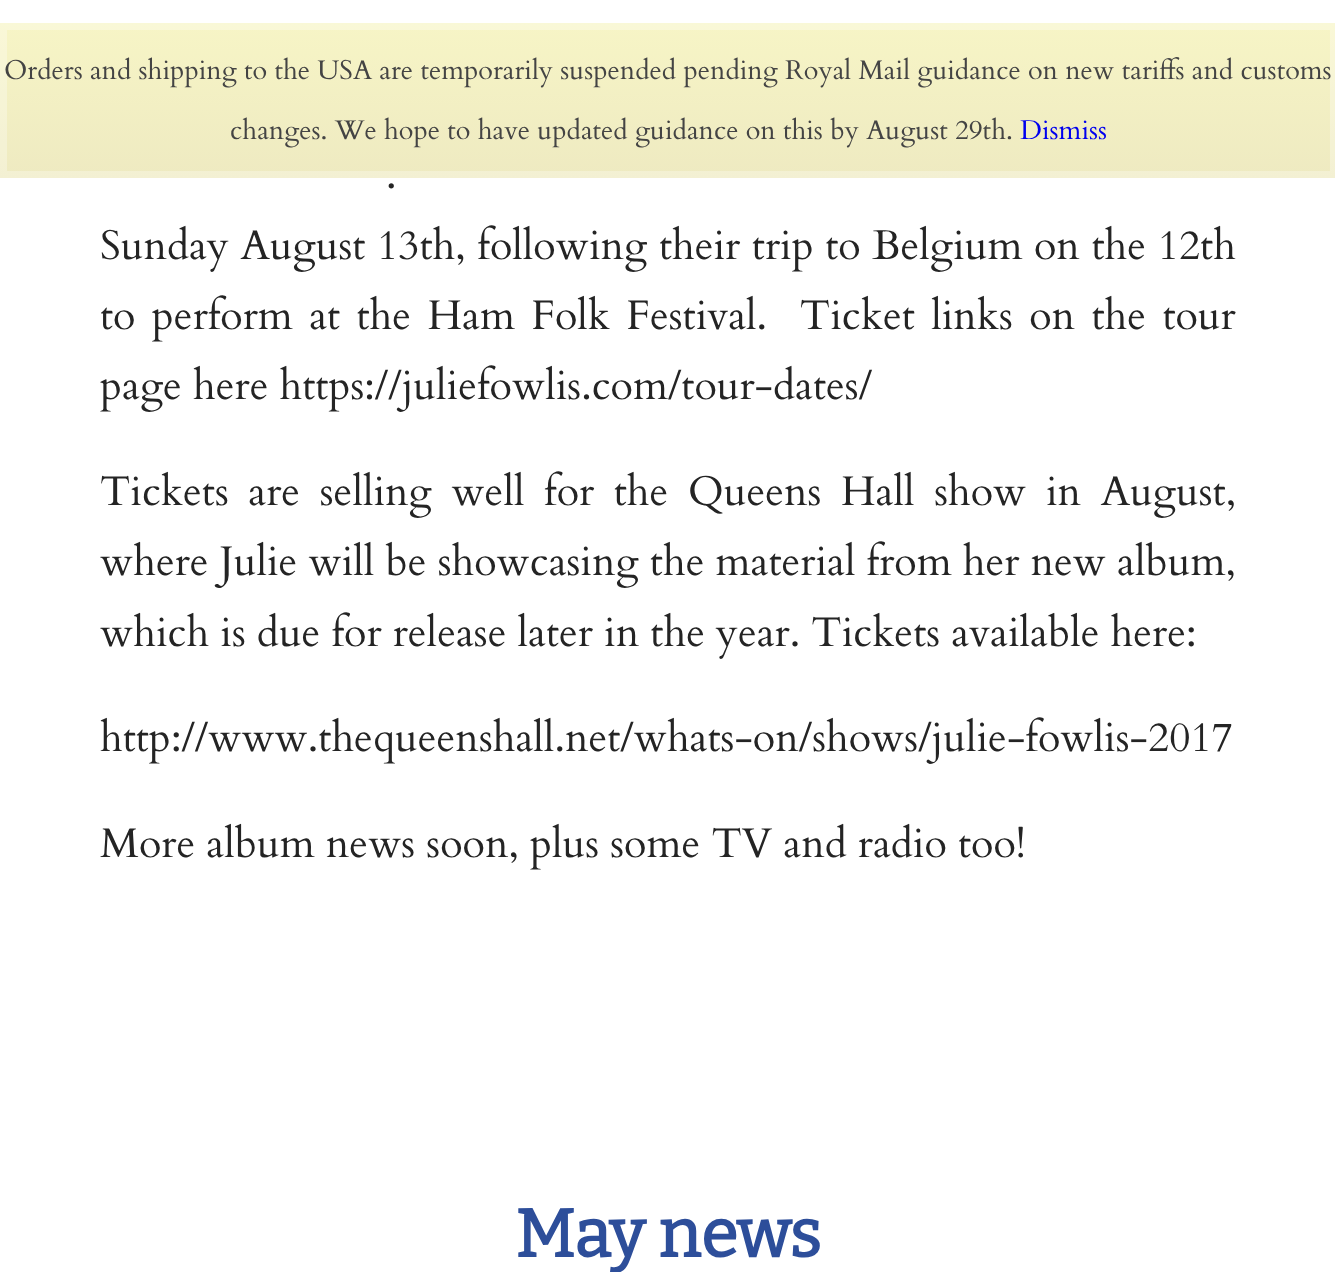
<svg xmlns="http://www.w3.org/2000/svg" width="1335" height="1272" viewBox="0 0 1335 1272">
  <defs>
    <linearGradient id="g1" gradientUnits="userSpaceOnUse" x1="668" y1="22" x2="668" y2="178"><stop offset="0" stop-color="rgb(247,245,198)"/><stop offset="1" stop-color="rgb(238,234,193)"/></linearGradient>
  </defs>
  <rect width="100%" height="100%" fill="rgb(255,255,255)"/>
  <rect x="0" y="23" width="1335" height="155" fill="url(#g1)"/>
  <rect x="3.5" y="26.5" width="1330" height="148" fill="none" stroke="rgba(255,255,255,0.3)" stroke-width="7"/>
  <g font-family="Cardo" font-size="27" fill="rgb(68,68,68)">
    <text x="4" y="79">Orders and shipping to the USA are temporarily suspended pending Royal Mail guidance on new tariffs and customs</text>
    <text x="230" y="139">changes. We hope to have updated guidance on this by August 29th.</text>
  </g>
  <text x="1020" y="139" font-family="Cardo" font-size="27" fill="rgb(0,0,238)">Dismiss</text>
  <g font-family="Cardo" font-size="41.4" fill="rgb(36,36,36)">
    <text x="386" y="188" word-spacing="12">.</text>
    <text xml:space="preserve"><tspan x="100" y="259" word-spacing="0.5">Sunday August 13th, following their trip to Belgium on the 12th</tspan><tspan x="100" y="329" word-spacing="5.25">to perform at the Ham Folk Festival.  Ticket links on the tour</tspan><tspan x="100" y="399">page here https://juliefowlis.com/tour-dates/</tspan></text>
    <text>
      <tspan x="100" y="505" word-spacing="8.5">Tickets are selling well for the Queens Hall show in August,</tspan>
      <tspan x="100" y="575">where Julie will be showcasing the material from her new album,</tspan>
      <tspan x="100" y="646">which is due for release later in the year. Tickets available here:</tspan>
    </text>
    <text x="100" y="751">http://www.thequeenshall.net/whats-on/shows/julie-fowlis-2017</text>
    <text x="100" y="857">More album news soon, plus some TV and radio too!</text>
  </g>
  <text x="515" y="1257" font-family="Bitter" font-size="67.5" font-weight="bold" fill="rgb(45,78,154)">May news</text>
</svg>
